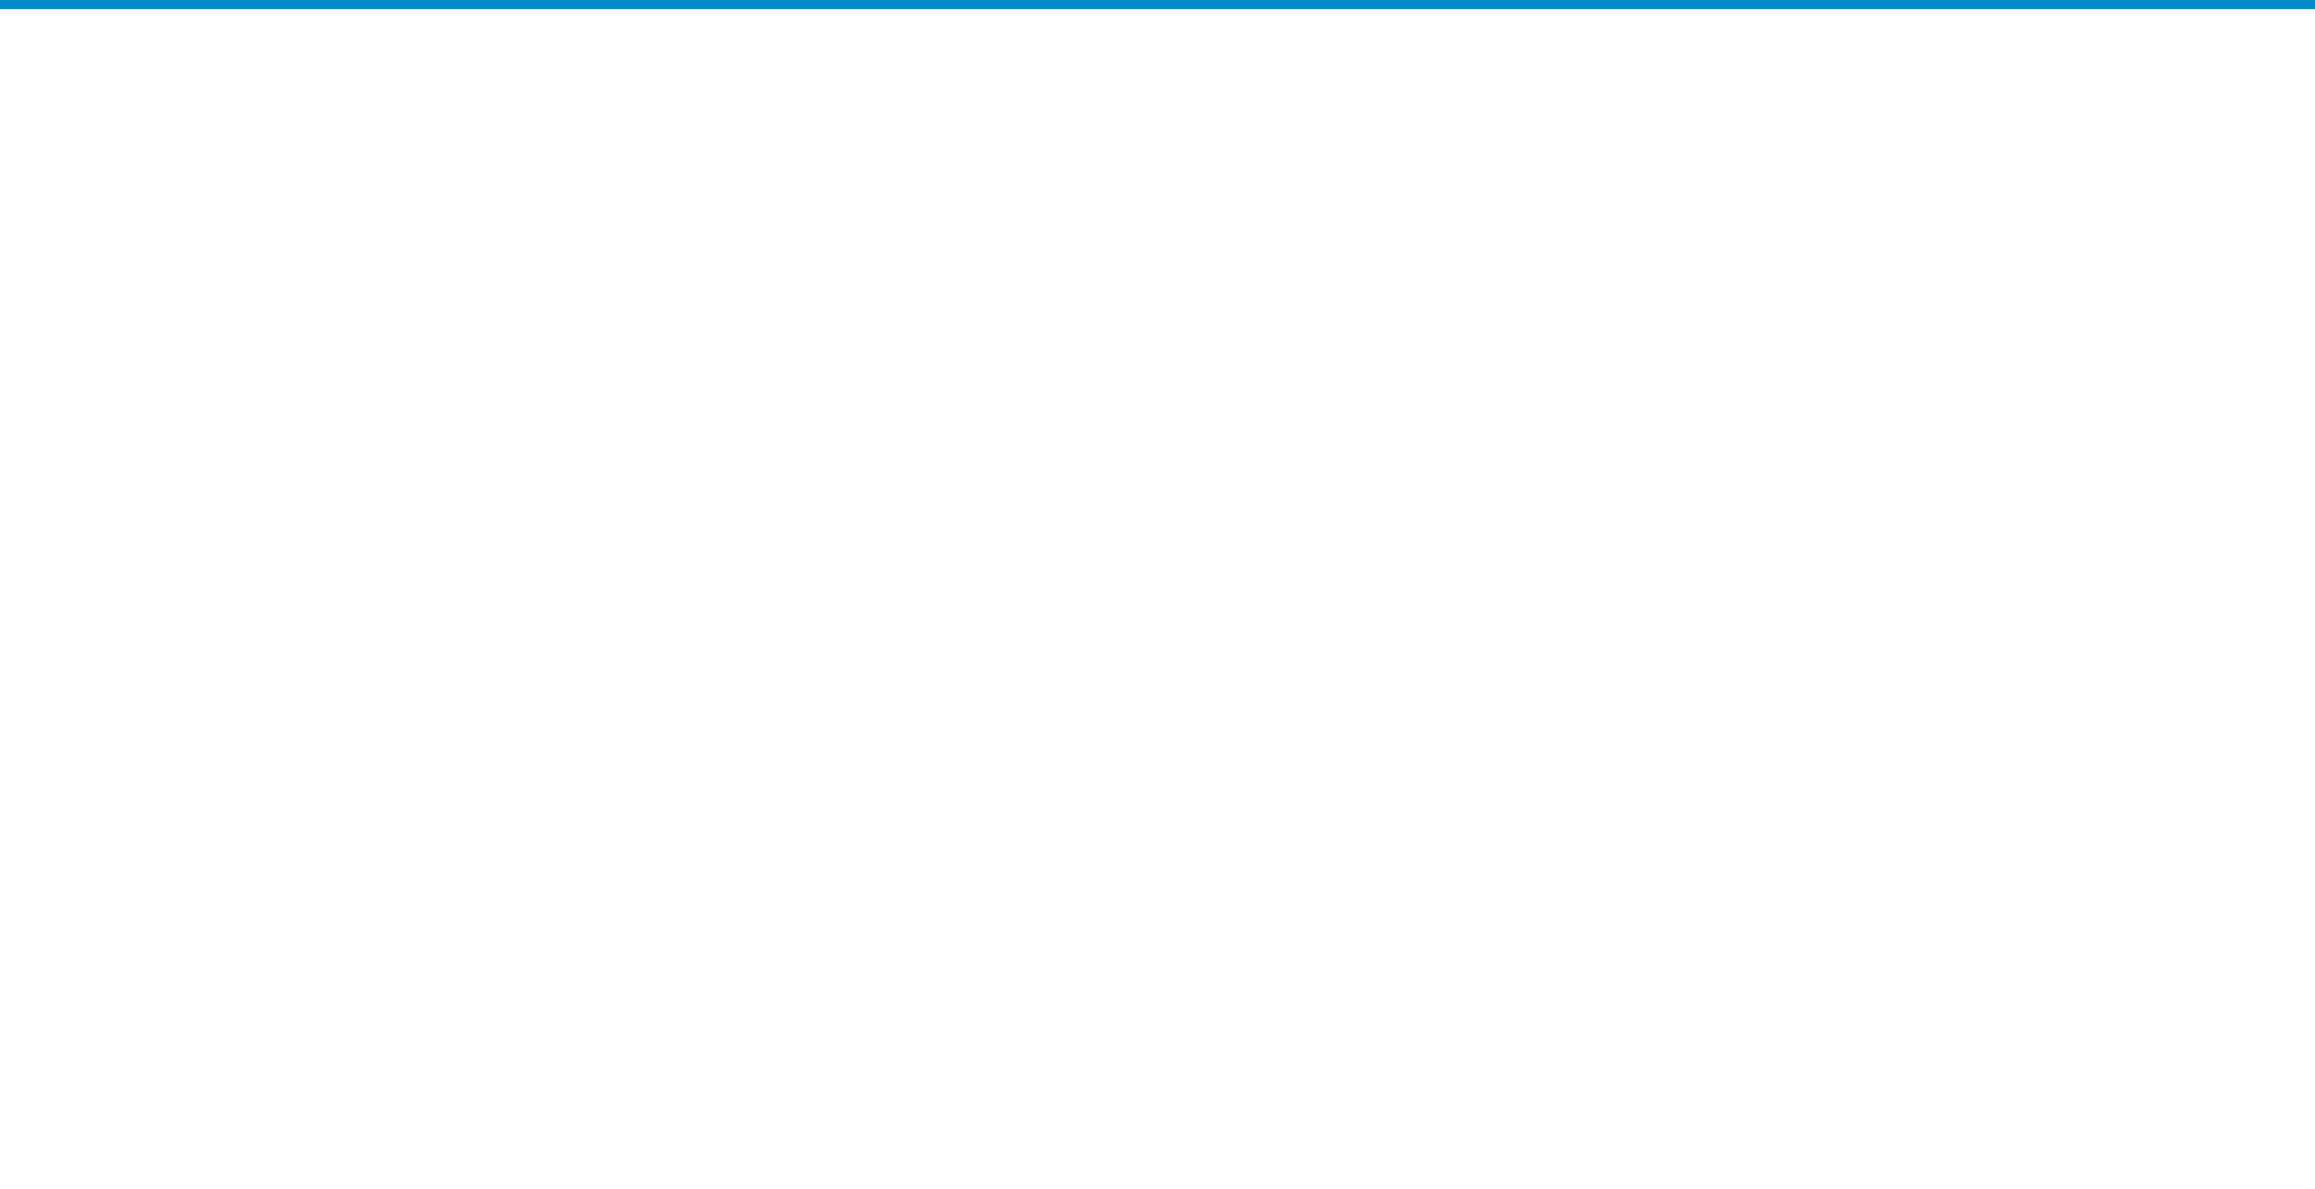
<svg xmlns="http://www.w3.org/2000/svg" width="2315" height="1189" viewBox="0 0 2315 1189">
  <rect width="100%" height="100%" fill="rgb(255,255,255)"/>
  <rect x="0" y="0" width="2315" height="9" fill="rgb(1,139,200)"/>
</svg>
